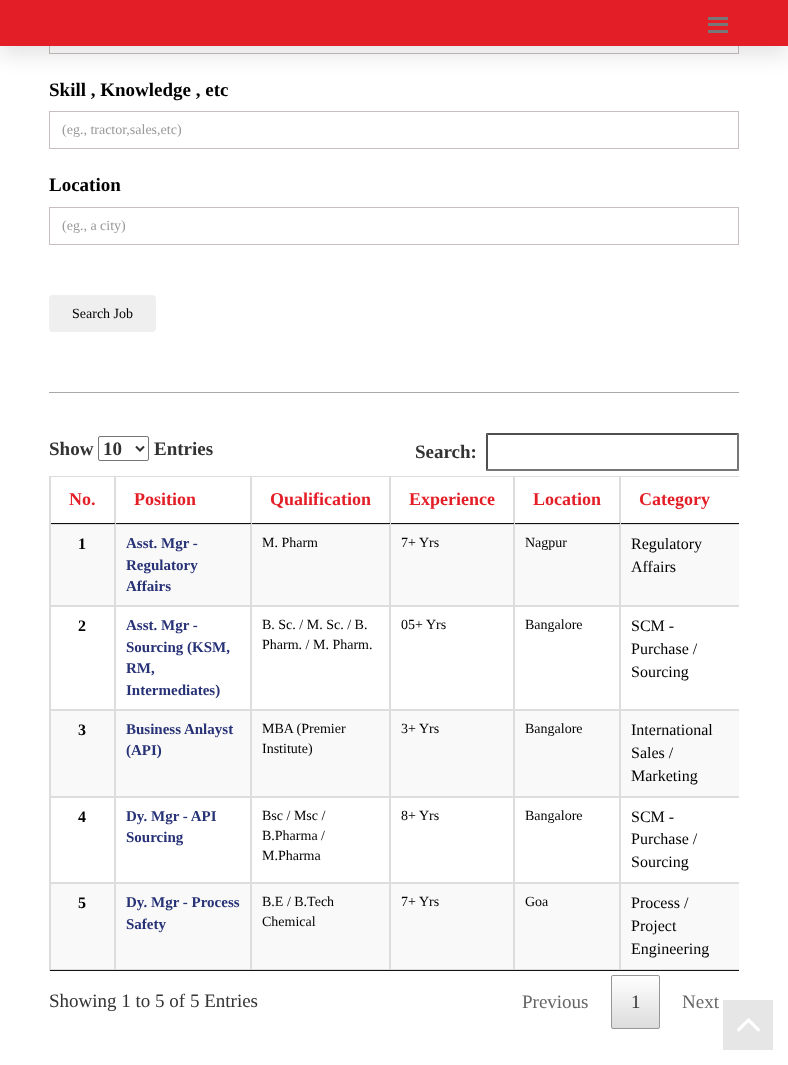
<svg xmlns="http://www.w3.org/2000/svg" width="788" height="1065" viewBox="0 0 788 1065">
  <defs>
    <clipPath id="clip1"><rect x="49" y="433" width="690" height="596"/></clipPath>
    <clipPath id="clip2"><rect x="611" y="975" width="49" height="54" rx="2"/></clipPath>
    <linearGradient id="g1" gradientUnits="userSpaceOnUse" x1="636" y1="976" x2="636" y2="1028"><stop offset="0" stop-color="rgb(255,255,255)"/><stop offset="1" stop-color="rgb(220,220,220)"/></linearGradient>
  </defs>
  <rect width="100%" height="100%" fill="rgb(255,255,255)"/>
  <rect x="49.5" y="16.5" width="689" height="37" fill="none" stroke="rgb(200,190,190)"/>
  <rect x="0" y="10" width="788" height="46" fill="rgba(0,0,0,0.1)" filter="blur(10px)"/>
  <rect x="0" y="0" width="788" height="46" fill="rgb(228,30,38)"/>
  <rect x="708" y="17" width="20" height="3" fill="rgb(119,119,119)"/>
  <rect x="708" y="23" width="20" height="3" fill="rgb(119,119,119)"/>
  <rect x="708" y="30" width="20" height="3" fill="rgb(119,119,119)"/>
  <text x="49" y="96" font-family="Liberation Serif" font-size="19" font-weight="bold" fill="rgb(0,0,0)">Skill , Knowledge , etc</text>
  <rect x="49.5" y="111.5" width="689" height="37" fill="none" stroke="rgb(200,190,190)"/>
  <text x="62" y="134" font-family="Liberation Serif" font-size="14" fill="rgb(153,153,153)">(eg., tractor,sales,etc)</text>
  <text x="49" y="191" font-family="Liberation Serif" font-size="19" font-weight="bold" fill="rgb(0,0,0)">Location</text>
  <rect x="49.5" y="207.5" width="689" height="37" fill="none" stroke="rgb(200,190,190)"/>
  <text x="62" y="230" font-family="Liberation Serif" font-size="14" fill="rgb(153,153,153)">(eg., a city)</text>
  <rect x="49" y="295" width="107" height="37" rx="4" fill="rgb(239,239,239)"/>
  <text x="72" y="318" font-family="Liberation Serif" font-size="14" fill="rgb(0,0,0)">Search Job</text>
  <rect x="49" y="392" width="690" height="1" fill="rgb(170,169,169)"/>
  <text x="49" y="455" font-family="Liberation Serif" font-size="19" font-weight="bold" fill="rgb(51,51,51)">Show</text>
  <rect x="98.5" y="436.5" width="50" height="24" rx="1.5" fill="none" stroke="rgb(118,118,118)"/>
  <path d="M136 446.5L140 450.5L144 446.5" fill="none" stroke="rgb(51,51,51)" stroke-width="2"/>
  <g font-family="Liberation Serif" font-size="19" font-weight="bold" fill="rgb(51,51,51)">
    <text x="103" y="455">10</text>
    <text x="154" y="455">Entries</text>
    <text x="415" y="458">Search:</text>
  </g>
  <path d="M486 433H739L737 435H488Z" fill="rgb(79,79,79)"/>
  <path d="M739 433V471L737 469V435Z" fill="rgb(118,118,118)"/>
  <path d="M739 471H486L488 469H737Z" fill="rgb(118,118,118)"/>
  <path d="M486 471V433L488 435V469Z" fill="rgb(79,79,79)"/>
  <rect x="49" y="476" width="690" height="1" fill="rgb(221,221,221)"/>
  <rect x="49" y="970" width="690" height="1" fill="rgb(17,17,17)"/>
  <rect x="49" y="476" width="1" height="495" fill="rgb(221,221,221)"/>
  <rect x="114" y="477" width="1" height="47" fill="rgb(221,221,221)"/>
  <rect x="50" y="523" width="65" height="1" fill="rgb(17,17,17)"/>
  <rect x="50" y="477" width="1" height="47" fill="rgb(221,221,221)"/>
  <text x="69" y="505" font-family="Liberation Serif" font-size="18" font-weight="bold" fill="rgb(228,30,38)">No.</text>
  <rect x="250" y="477" width="1" height="47" fill="rgb(221,221,221)"/>
  <rect x="115" y="523" width="136" height="1" fill="rgb(17,17,17)"/>
  <rect x="115" y="477" width="1" height="47" fill="rgb(221,221,221)"/>
  <text x="134" y="505" font-family="Liberation Serif" font-size="18" font-weight="bold" fill="rgb(228,30,38)">Position</text>
  <rect x="389" y="477" width="1" height="47" fill="rgb(221,221,221)"/>
  <rect x="251" y="523" width="139" height="1" fill="rgb(17,17,17)"/>
  <rect x="251" y="477" width="1" height="47" fill="rgb(221,221,221)"/>
  <text x="270" y="505" font-family="Liberation Serif" font-size="18" font-weight="bold" fill="rgb(228,30,38)">Qualification</text>
  <rect x="513" y="477" width="1" height="47" fill="rgb(221,221,221)"/>
  <rect x="390" y="523" width="124" height="1" fill="rgb(17,17,17)"/>
  <rect x="390" y="477" width="1" height="47" fill="rgb(221,221,221)"/>
  <text x="409" y="505" font-family="Liberation Serif" font-size="18" font-weight="bold" fill="rgb(228,30,38)">Experience</text>
  <rect x="619" y="477" width="1" height="47" fill="rgb(221,221,221)"/>
  <rect x="514" y="523" width="225" height="1" fill="rgb(17,17,17)"/>
  <rect x="514" y="477" width="1" height="47" fill="rgb(221,221,221)"/>
  <text x="533" y="505" font-family="Liberation Serif" font-size="18" font-weight="bold" fill="rgb(228,30,38)">Location</text>
  <rect x="620" y="477" width="1" height="47" fill="rgb(221,221,221)"/>
  <text x="639" y="505" font-family="Liberation Serif" font-size="18" font-weight="bold" fill="rgb(228,30,38)">Category</text>
  <rect x="51" y="525" width="688" height="80" fill="rgb(249,249,249)"/>
  <rect x="50.5" y="524.5" width="64" height="81" fill="none" stroke="rgb(221,221,221)"/>
  <text x="78" y="549" font-family="Liberation Serif" font-size="16" font-weight="bold" fill="rgb(0,0,0)">1</text>
  <rect x="115.5" y="524.5" width="135" height="81" fill="none" stroke="rgb(221,221,221)"/>
  <g font-family="Liberation Serif" font-size="15" font-weight="bold" fill="rgb(40,51,119)">
    <text>
      <tspan x="126" y="548">Asst. Mgr -</tspan>
      <tspan x="126" y="570">Regulatory</tspan>
      <tspan x="126" y="591">Affairs</tspan>
    </text>
  </g>
  <rect x="251.5" y="524.5" width="138" height="81" fill="none" stroke="rgb(221,221,221)"/>
  <text x="262" y="547" font-family="Liberation Serif" font-size="14" fill="rgb(0,0,0)">M. Pharm</text>
  <rect x="390.5" y="524.5" width="123" height="81" fill="none" stroke="rgb(221,221,221)"/>
  <text x="401" y="547" font-family="Liberation Serif" font-size="14" fill="rgb(0,0,0)">7+ Yrs</text>
  <rect x="514.5" y="524.5" width="105" height="81" fill="none" stroke="rgb(221,221,221)"/>
  <text x="525" y="547" font-family="Liberation Serif" font-size="14" fill="rgb(0,0,0)">Nagpur</text>
  <g clip-path="url(#clip1)">
    <rect x="620.5" y="524.5" width="119" height="81" fill="none" stroke="rgb(221,221,221)"/>
  </g>
  <g font-family="Liberation Serif" font-size="16" fill="rgb(0,0,0)">
    <text>
      <tspan x="631" y="549">Regulatory</tspan>
      <tspan x="631" y="572">Affairs</tspan>
    </text>
  </g>
  <rect x="50.5" y="606.5" width="64" height="103" fill="none" stroke="rgb(221,221,221)"/>
  <text x="78" y="631" font-family="Liberation Serif" font-size="16" font-weight="bold" fill="rgb(0,0,0)">2</text>
  <rect x="115.5" y="606.5" width="135" height="103" fill="none" stroke="rgb(221,221,221)"/>
  <g font-family="Liberation Serif" font-size="15" font-weight="bold" fill="rgb(40,51,119)">
    <text>
      <tspan x="126" y="630">Asst. Mgr -</tspan>
      <tspan x="126" y="652">Sourcing (KSM,</tspan>
      <tspan x="126" y="673">RM,</tspan>
      <tspan x="126" y="695">Intermediates)</tspan>
    </text>
  </g>
  <rect x="251.5" y="606.5" width="138" height="103" fill="none" stroke="rgb(221,221,221)"/>
  <g font-family="Liberation Serif" font-size="14" fill="rgb(0,0,0)">
    <text>
      <tspan x="262" y="629">B. Sc. / M. Sc. / B.</tspan>
      <tspan x="262" y="649">Pharm. / M. Pharm.</tspan>
    </text>
  </g>
  <rect x="390.5" y="606.5" width="123" height="103" fill="none" stroke="rgb(221,221,221)"/>
  <text x="401" y="629" font-family="Liberation Serif" font-size="14" fill="rgb(0,0,0)">05+ Yrs</text>
  <rect x="514.5" y="606.5" width="105" height="103" fill="none" stroke="rgb(221,221,221)"/>
  <text x="525" y="629" font-family="Liberation Serif" font-size="14" fill="rgb(0,0,0)">Bangalore</text>
  <g clip-path="url(#clip1)">
    <rect x="620.5" y="606.5" width="119" height="103" fill="none" stroke="rgb(221,221,221)"/>
  </g>
  <g font-family="Liberation Serif" font-size="16" fill="rgb(0,0,0)">
    <text>
      <tspan x="631" y="631">SCM -</tspan>
      <tspan x="631" y="654">Purchase /</tspan>
      <tspan x="631" y="677">Sourcing</tspan>
    </text>
  </g>
  <rect x="51" y="711" width="688" height="85" fill="rgb(249,249,249)"/>
  <rect x="50.5" y="710.5" width="64" height="86" fill="none" stroke="rgb(221,221,221)"/>
  <text x="78" y="735" font-family="Liberation Serif" font-size="16" font-weight="bold" fill="rgb(0,0,0)">3</text>
  <rect x="115.5" y="710.5" width="135" height="86" fill="none" stroke="rgb(221,221,221)"/>
  <g font-family="Liberation Serif" font-size="15" font-weight="bold" fill="rgb(40,51,119)">
    <text>
      <tspan x="126" y="734">Business Anlayst</tspan>
      <tspan x="126" y="755">(API)</tspan>
    </text>
  </g>
  <rect x="251.5" y="710.5" width="138" height="86" fill="none" stroke="rgb(221,221,221)"/>
  <g font-family="Liberation Serif" font-size="14" fill="rgb(0,0,0)">
    <text>
      <tspan x="262" y="733">MBA (Premier</tspan>
      <tspan x="262" y="753">Institute)</tspan>
    </text>
  </g>
  <rect x="390.5" y="710.5" width="123" height="86" fill="none" stroke="rgb(221,221,221)"/>
  <text x="401" y="733" font-family="Liberation Serif" font-size="14" fill="rgb(0,0,0)">3+ Yrs</text>
  <rect x="514.5" y="710.5" width="105" height="86" fill="none" stroke="rgb(221,221,221)"/>
  <text x="525" y="733" font-family="Liberation Serif" font-size="14" fill="rgb(0,0,0)">Bangalore</text>
  <g clip-path="url(#clip1)">
    <rect x="620.5" y="710.5" width="119" height="86" fill="none" stroke="rgb(221,221,221)"/>
  </g>
  <g font-family="Liberation Serif" font-size="16" fill="rgb(0,0,0)">
    <text>
      <tspan x="631" y="735">International</tspan>
      <tspan x="631" y="758">Sales /</tspan>
      <tspan x="631" y="781">Marketing</tspan>
    </text>
  </g>
  <rect x="50.5" y="797.5" width="64" height="85" fill="none" stroke="rgb(221,221,221)"/>
  <text x="78" y="822" font-family="Liberation Serif" font-size="16" font-weight="bold" fill="rgb(0,0,0)">4</text>
  <rect x="115.5" y="797.5" width="135" height="85" fill="none" stroke="rgb(221,221,221)"/>
  <g font-family="Liberation Serif" font-size="15" font-weight="bold" fill="rgb(40,51,119)">
    <text>
      <tspan x="126" y="821">Dy. Mgr - API</tspan>
      <tspan x="126" y="842">Sourcing</tspan>
    </text>
  </g>
  <rect x="251.5" y="797.5" width="138" height="85" fill="none" stroke="rgb(221,221,221)"/>
  <g font-family="Liberation Serif" font-size="14" fill="rgb(0,0,0)">
    <text>
      <tspan x="262" y="820">Bsc / Msc /</tspan>
      <tspan x="262" y="840">B.Pharma /</tspan>
      <tspan x="262" y="860">M.Pharma</tspan>
    </text>
  </g>
  <rect x="390.5" y="797.5" width="123" height="85" fill="none" stroke="rgb(221,221,221)"/>
  <text x="401" y="820" font-family="Liberation Serif" font-size="14" fill="rgb(0,0,0)">8+ Yrs</text>
  <rect x="514.5" y="797.5" width="105" height="85" fill="none" stroke="rgb(221,221,221)"/>
  <text x="525" y="820" font-family="Liberation Serif" font-size="14" fill="rgb(0,0,0)">Bangalore</text>
  <g clip-path="url(#clip1)">
    <rect x="620.5" y="797.5" width="119" height="85" fill="none" stroke="rgb(221,221,221)"/>
  </g>
  <g font-family="Liberation Serif" font-size="16" fill="rgb(0,0,0)">
    <text>
      <tspan x="631" y="822">SCM -</tspan>
      <tspan x="631" y="844">Purchase /</tspan>
      <tspan x="631" y="867">Sourcing</tspan>
    </text>
  </g>
  <rect x="51" y="884" width="688" height="85" fill="rgb(249,249,249)"/>
  <rect x="50.5" y="883.5" width="64" height="86" fill="none" stroke="rgb(221,221,221)"/>
  <text x="78" y="908" font-family="Liberation Serif" font-size="16" font-weight="bold" fill="rgb(0,0,0)">5</text>
  <rect x="115.5" y="883.5" width="135" height="86" fill="none" stroke="rgb(221,221,221)"/>
  <g font-family="Liberation Serif" font-size="15" font-weight="bold" fill="rgb(40,51,119)">
    <text>
      <tspan x="126" y="907">Dy. Mgr - Process</tspan>
      <tspan x="126" y="929">Safety</tspan>
    </text>
  </g>
  <rect x="251.5" y="883.5" width="138" height="86" fill="none" stroke="rgb(221,221,221)"/>
  <g font-family="Liberation Serif" font-size="14" fill="rgb(0,0,0)">
    <text>
      <tspan x="262" y="906">B.E / B.Tech</tspan>
      <tspan x="262" y="926">Chemical</tspan>
    </text>
  </g>
  <rect x="390.5" y="883.5" width="123" height="86" fill="none" stroke="rgb(221,221,221)"/>
  <text x="401" y="906" font-family="Liberation Serif" font-size="14" fill="rgb(0,0,0)">7+ Yrs</text>
  <rect x="514.5" y="883.5" width="105" height="86" fill="none" stroke="rgb(221,221,221)"/>
  <text x="525" y="906" font-family="Liberation Serif" font-size="14" fill="rgb(0,0,0)">Goa</text>
  <g clip-path="url(#clip1)">
    <rect x="620.5" y="883.5" width="119" height="86" fill="none" stroke="rgb(221,221,221)"/>
  </g>
  <g font-family="Liberation Serif" font-size="16" fill="rgb(0,0,0)">
    <text>
      <tspan x="631" y="908">Process /</tspan>
      <tspan x="631" y="931">Project</tspan>
      <tspan x="631" y="954">Engineering</tspan>
    </text>
  </g>
  <text x="49" y="1007" font-family="Liberation Serif" font-size="19" fill="rgb(51,51,51)">Showing 1 to 5 of 5 Entries</text>
  <text x="522" y="1008" font-family="Liberation Serif" font-size="19" fill="rgb(102,102,102)">Previous</text>
  <g clip-path="url(#clip2)">
    <rect x="611" y="976" width="49" height="52" fill="url(#g1)"/>
  </g>
  <rect x="611.5" y="975.5" width="48" height="53" rx="1.5" fill="none" stroke="rgb(151,151,151)"/>
  <text x="631" y="1008" font-family="Liberation Serif" font-size="19" fill="rgb(51,51,51)">1</text>
  <text x="682" y="1008" font-family="Liberation Serif" font-size="19" fill="rgb(102,102,102)">Next</text>
  <rect x="723" y="1000" width="50" height="50" fill="rgb(230,230,230)"/>
  <image x="737" y="1018" width="23" height="14" href="pic1.png"/>
</svg>
